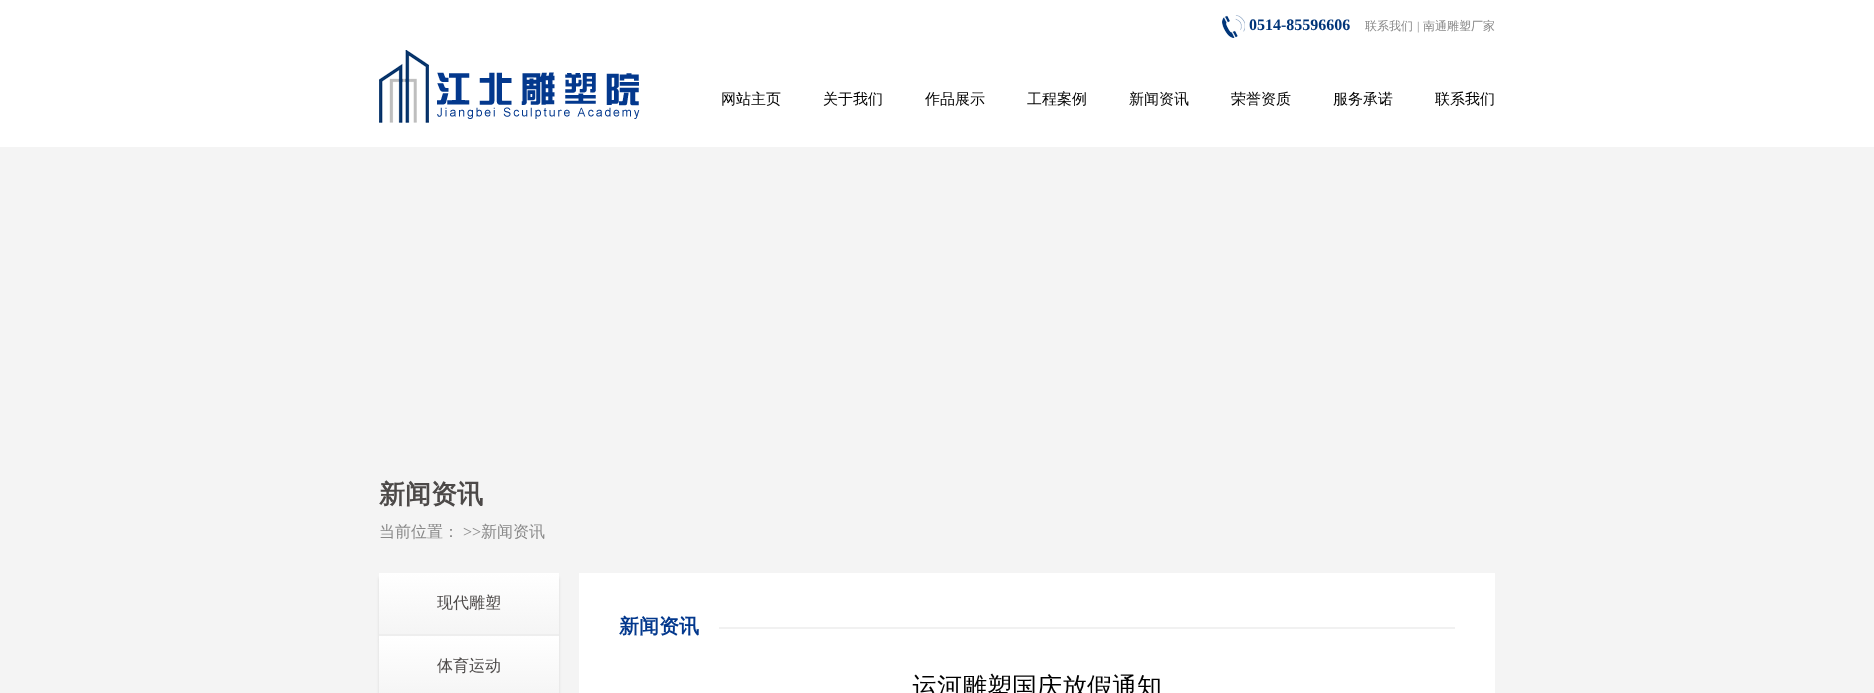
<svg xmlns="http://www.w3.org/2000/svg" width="1874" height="693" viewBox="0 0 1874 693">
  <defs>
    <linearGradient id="g1" gradientUnits="userSpaceOnUse" x1="469" y1="573" x2="469" y2="634"><stop offset="0" stop-color="rgb(255,255,255)"/><stop offset="1" stop-color="rgb(245,245,245)"/></linearGradient>
    <linearGradient id="g2" gradientUnits="userSpaceOnUse" x1="469" y1="636" x2="469" y2="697"><stop offset="0" stop-color="rgb(255,255,255)"/><stop offset="1" stop-color="rgb(245,245,245)"/></linearGradient>
  </defs>
  <rect width="100%" height="100%" fill="rgb(244,244,244)"/>
  <rect x="0" y="0" width="1874" height="147" fill="rgb(255,255,255)"/>
  <image x="1222" y="15" width="23" height="23" href="pic1.png"/>
  <text x="1249" y="30" font-family="Liberation Serif" font-size="16" font-weight="bold" fill="rgb(0,53,121)">0514-85596606</text>
  <text x="1365" y="30" font-family="WenQuanYi Zen Hei" font-size="12" font-weight="500" fill="rgb(137,137,137)">联系我们</text>
  <text x="1417" y="30" font-family="Liberation Serif" font-size="12" fill="rgb(137,137,137)">|</text>
  <text x="1423" y="30" font-family="WenQuanYi Zen Hei" font-size="12" font-weight="500" fill="rgb(137,137,137)">南通雕塑厂家</text>
  <image x="379" y="50" width="261" height="73" href="pic2.png"/>
  <g font-family="WenQuanYi Zen Hei" font-size="15" font-weight="500" fill="rgb(0,0,0)">
    <text x="721" y="104">网站主页</text>
    <text x="823" y="104">关于我们</text>
    <text x="925" y="104">作品展示</text>
    <text x="1027" y="104">工程案例</text>
    <text x="1129" y="104">新闻资讯</text>
    <text x="1231" y="104">荣誉资质</text>
    <text x="1333" y="104">服务承诺</text>
    <text x="1435" y="104">联系我们</text>
  </g>
  <text x="379" y="503" font-family="WenQuanYi Zen Hei" font-size="26" font-weight="bold" fill="rgb(76,73,72)">新闻资讯</text>
  <text x="379" y="537" font-family="WenQuanYi Zen Hei" font-size="16" font-weight="500" fill="rgb(137,137,137)">当前位置：</text>
  <text x="463" y="537" font-family="Liberation Serif" font-size="16" fill="rgb(137,137,137)">&gt;&gt;</text>
  <text x="481" y="537" font-family="WenQuanYi Zen Hei" font-size="16" font-weight="500" fill="rgb(137,137,137)">新闻资讯</text>
  <rect x="379" y="578" width="180" height="63" fill="rgba(0,0,0,0.1)" filter="blur(1.5px)"/>
  <rect x="379" y="573" width="180" height="61" fill="url(#g1)"/>
  <rect x="379" y="634" width="180" height="2" fill="rgb(238,238,238)"/>
  <text x="437" y="608" font-family="WenQuanYi Zen Hei" font-size="16" font-weight="500" fill="rgb(76,73,72)">现代雕塑</text>
  <rect x="379" y="641" width="180" height="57" fill="rgba(0,0,0,0.1)" filter="blur(1.5px)"/>
  <rect x="379" y="636" width="180" height="57" fill="url(#g2)"/>
  <text x="437" y="671" font-family="WenQuanYi Zen Hei" font-size="16" font-weight="500" fill="rgb(76,73,72)">体育运动</text>
  <rect x="579" y="573" width="916" height="120" fill="rgb(255,255,255)"/>
  <text x="619" y="633" font-family="WenQuanYi Zen Hei" font-size="20" font-weight="bold" fill="rgb(3,56,141)">新闻资讯</text>
  <rect x="719" y="627" width="736" height="2" fill="rgb(241,241,241)"/>
  <text x="912" y="695" font-family="WenQuanYi Zen Hei" font-size="25" font-weight="500" fill="rgb(0,0,0)">运河雕塑国庆放假通知</text>
</svg>
